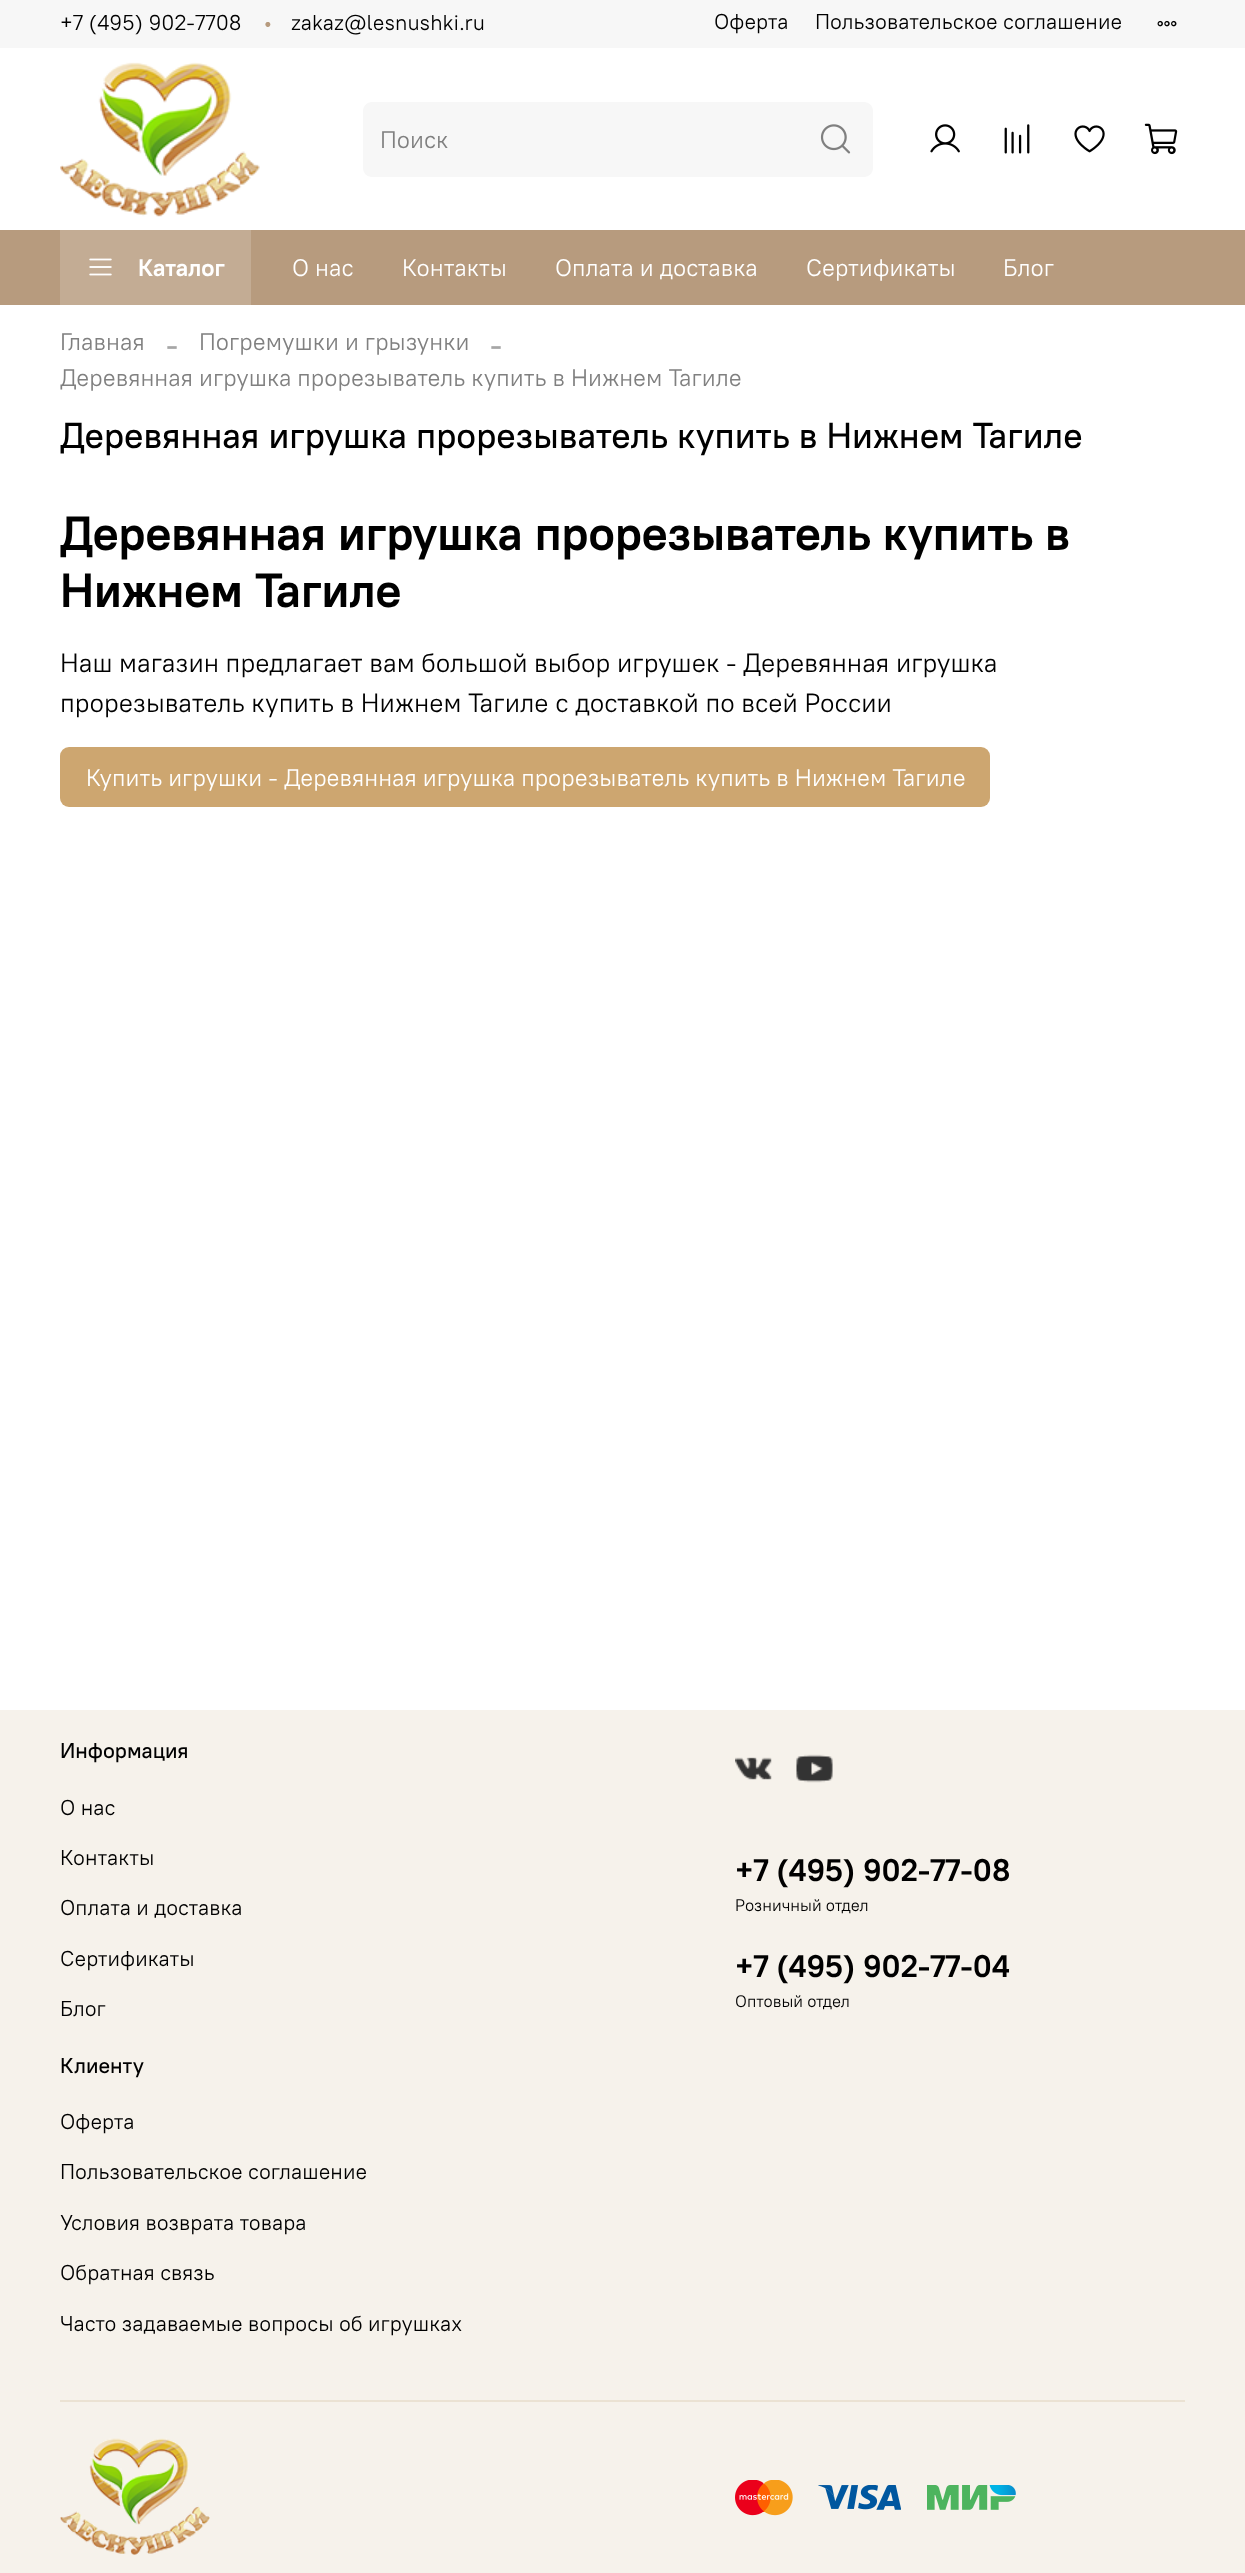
<svg xmlns="http://www.w3.org/2000/svg" width="1245" height="2573" viewBox="0 0 1245 2573">
  <rect width="100%" height="100%" fill="rgb(255,255,255)"/>
  <rect x="0" y="0" width="1245" height="48" fill="rgb(247,247,247)"/>
  <text x="60" y="30" font-family="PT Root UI" font-size="21.6" fill="rgb(0,0,0)">+7 (495) 902-7708</text>
  <text x="263" y="30" font-family="PT Root UI" font-size="21.6" fill="rgb(183,155,126)">•</text>
  <g font-family="PT Root UI" font-size="21.6" fill="rgb(0,0,0)">
    <text x="291" y="30">zakaz@lesnushki.ru</text>
    <text x="714" y="29">Оферта</text>
    <text x="815" y="29">Пользовательское соглашение</text>
  </g>
  <image x="1157" y="20" width="20" height="7" href="pic1.png"/>
  <image x="60" y="62" width="200" height="155" href="pic2.png"/>
  <path d="M372 102H798V177H372C367 177 363 173 363 168V111C363 106 367 102 372 102Z" fill="rgb(247,247,247)"/>
  <text x="380" y="148" font-family="PT Root UI" font-size="24" fill="rgb(128,128,128)">Поиск</text>
  <path d="M798 102H864C869 102 873 106 873 111V168C873 173 869 177 864 177H798Z" fill="rgb(247,247,247)"/>
  <image x="820" y="124" width="31" height="30" href="pic3.png"/>
  <image x="930" y="124" width="30" height="29" href="pic4.png"/>
  <image x="1004" y="124" width="26" height="30" href="pic5.png"/>
  <image x="1074" y="125" width="31" height="28" href="pic6.png"/>
  <image x="1144" y="123" width="34" height="32" href="pic7.png"/>
  <rect x="0" y="230" width="1245" height="75" fill="rgb(183,155,126)"/>
  <rect x="60" y="230" width="191" height="75" fill="rgb(195,172,148)"/>
  <image x="89" y="258" width="23" height="18" href="pic8.png"/>
  <text x="138" y="276" font-family="PT Root UI" font-size="24" font-weight="bold" fill="rgb(255,255,255)">Каталог</text>
  <g font-family="PT Root UI" font-size="24" fill="rgb(255,255,255)">
    <text x="292" y="276">О нас</text>
    <text x="402" y="276">Контакты</text>
    <text x="555" y="276">Оплата и доставка</text>
    <text x="806" y="276">Сертификаты</text>
    <text x="1003" y="276">Блог</text>
  </g>
  <text x="60" y="350" font-family="PT Root UI" font-size="24" fill="rgb(128,128,128)">Главная</text>
  <text x="166" y="356" font-family="Liberation Serif" font-size="36" fill="rgb(166,166,166)">-</text>
  <text x="199" y="350" font-family="PT Root UI" font-size="24" fill="rgb(128,128,128)">Погремушки и грызунки</text>
  <text x="490" y="356" font-family="Liberation Serif" font-size="36" fill="rgb(166,166,166)">-</text>
  <text x="60" y="386" font-family="PT Root UI" font-size="24" fill="rgb(128,128,128)">Деревянная игрушка прорезыватель купить в Нижнем Тагиле</text>
  <text x="60" y="448" font-family="PT Root UI" font-size="36" font-weight="500" fill="rgb(0,0,0)">Деревянная игрушка прорезыватель купить в Нижнем Тагиле</text>
  <g font-family="PT Root UI" font-size="48" font-weight="bold" fill="rgb(0,0,0)">
    <text>
      <tspan x="60" y="550">Деревянная игрушка прорезыватель купить в</tspan>
      <tspan x="60" y="607">Нижнем Тагиле</tspan>
    </text>
  </g>
  <g font-family="PT Root UI" font-size="26.4" fill="rgb(0,0,0)">
    <text>
      <tspan x="60" y="672">Наш магазин предлагает вам большой выбор игрушек - Деревянная игрушка</tspan>
      <tspan x="60" y="712">прорезыватель купить в Нижнем Тагиле с доставкой по всей России</tspan>
    </text>
  </g>
  <rect x="60" y="747" width="930" height="60" rx="9" fill="rgb(205,166,112)"/>
  <text x="86" y="786" font-family="PT Root UI" font-size="24" fill="rgb(255,255,255)">Купить игрушки - Деревянная игрушка прорезыватель купить в Нижнем Тагиле</text>
  <rect x="0" y="1710" width="1245" height="863" fill="rgb(246,242,235)"/>
  <text x="60" y="1758" font-family="PT Root UI" font-size="21.6" font-weight="500" fill="rgb(0,0,0)">Информация</text>
  <g font-family="PT Root UI" font-size="21.6" fill="rgb(0,0,0)">
    <text x="60" y="1815">О нас</text>
    <text x="60" y="1865">Контакты</text>
    <text x="60" y="1915">Оплата и доставка</text>
    <text x="60" y="1966">Сертификаты</text>
    <text x="60" y="2016">Блог</text>
  </g>
  <text x="60" y="2073" font-family="PT Root UI" font-size="21.6" font-weight="500" fill="rgb(0,0,0)">Клиенту</text>
  <g font-family="PT Root UI" font-size="21.6" fill="rgb(0,0,0)">
    <text x="60" y="2129">Оферта</text>
    <text x="60" y="2179">Пользовательское соглашение</text>
    <text x="60" y="2230">Условия возврата товара</text>
    <text x="60" y="2280">Обратная связь</text>
    <text x="60" y="2331">Часто задаваемые вопросы об игрушках</text>
  </g>
  <image x="735" y="1757" width="37" height="23" href="pic9.png"/>
  <image x="796" y="1754" width="37" height="29" href="pic10.png"/>
  <text x="735" y="1881" font-family="PT Root UI" font-size="31.25" font-weight="bold" fill="rgb(0,0,0)">+7 (495) 902-77-08</text>
  <text x="735" y="1911" font-family="PT Root UI" font-size="16.75" fill="rgb(0,0,0)">Розничный отдел</text>
  <text x="735" y="1977" font-family="PT Root UI" font-size="31.25" font-weight="bold" fill="rgb(0,0,0)">+7 (495) 902-77-04</text>
  <text x="735" y="2007" font-family="PT Root UI" font-size="16.75" fill="rgb(0,0,0)">Оптовый отдел</text>
  <rect x="60" y="2400" width="1125" height="2" fill="rgb(235,226,211)"/>
  <image x="60" y="2438" width="150" height="117" href="pic11.png"/>
  <image x="735" y="2480" width="58" height="36" href="pic12.png"/>
  <image x="818" y="2485" width="83" height="25" href="pic13.png"/>
  <image x="927" y="2485" width="89" height="25" href="pic14.png"/>
</svg>
